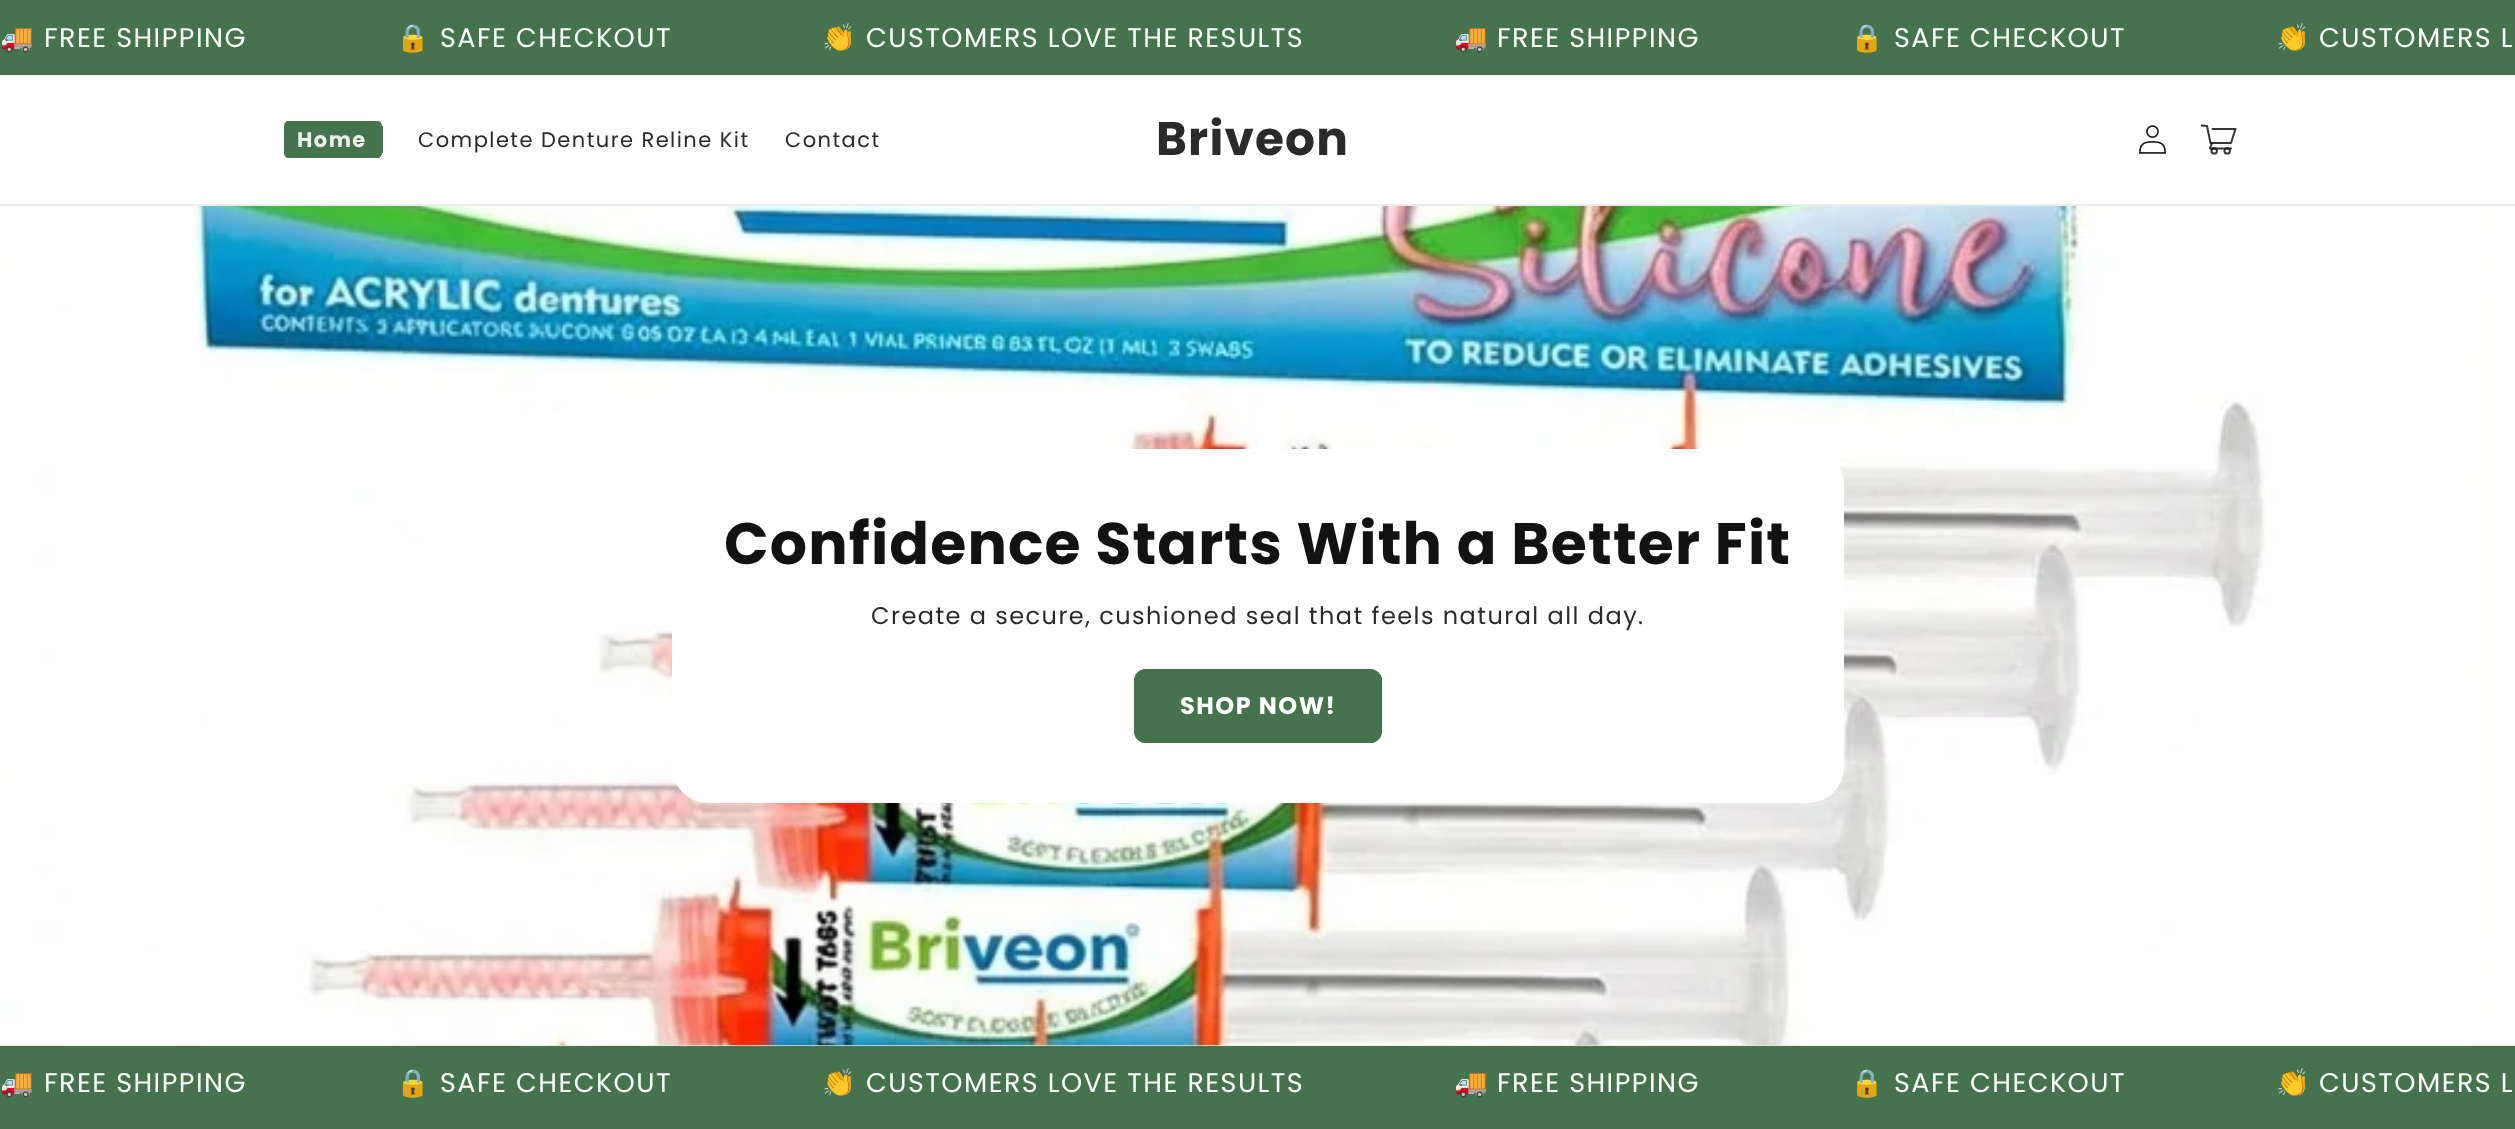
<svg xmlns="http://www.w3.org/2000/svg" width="2515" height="1129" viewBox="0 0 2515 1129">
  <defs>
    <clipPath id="clip1"><rect x="2201" y="122" width="36" height="36"/></clipPath>
  </defs>
  <rect width="100%" height="100%" fill="rgb(68,115,77)"/>
  <text x="0" y="47" font-family="Noto Color Emoji" font-size="27" letter-spacing="1.45" fill="rgb(255,255,255)">🚚</text>
  <text x="44" y="47" font-family="Poppins" font-size="27" letter-spacing="1.45" fill="rgb(255,255,255)">FREE SHIPPING</text>
  <text x="396" y="47" font-family="Noto Color Emoji" font-size="27" letter-spacing="1.45" fill="rgb(255,255,255)">🔒</text>
  <text x="440" y="47" font-family="Poppins" font-size="27" letter-spacing="1.45" fill="rgb(255,255,255)">SAFE CHECKOUT</text>
  <text x="822" y="47" font-family="Noto Color Emoji" font-size="27" letter-spacing="1.45" fill="rgb(255,255,255)">👏</text>
  <text x="866" y="47" font-family="Poppins" font-size="27" letter-spacing="1.45" fill="rgb(255,255,255)">CUSTOMERS LOVE THE RESULTS</text>
  <text x="1454" y="47" font-family="Noto Color Emoji" font-size="27" letter-spacing="1.45" fill="rgb(255,255,255)">🚚</text>
  <text x="1497" y="47" font-family="Poppins" font-size="27" letter-spacing="1.45" fill="rgb(255,255,255)">FREE SHIPPING</text>
  <text x="1850" y="47" font-family="Noto Color Emoji" font-size="27" letter-spacing="1.45" fill="rgb(255,255,255)">🔒</text>
  <text x="1894" y="47" font-family="Poppins" font-size="27" letter-spacing="1.45" fill="rgb(255,255,255)">SAFE CHECKOUT</text>
  <text x="2276" y="47" font-family="Noto Color Emoji" font-size="27" letter-spacing="1.45" fill="rgb(255,255,255)">👏</text>
  <text x="2319" y="47" font-family="Poppins" font-size="27" letter-spacing="1.45" fill="rgb(255,255,255)">CUSTOMERS L</text>
  <rect x="0" y="75" width="2515" height="129" fill="rgb(255,255,255)"/>
  <rect x="0" y="204" width="2515" height="2" fill="rgb(236,236,236)"/>
  <rect x="284" y="126" width="99" height="27" fill="rgb(68,115,77)"/>
  <path d="M288 121H378C380 121 382 123 382 127V152C382 156 380 158 378 158H288C286 158 284 156 284 152V127C284 123 286 121 288 121Z" fill="rgb(68,115,77)"/>
  <text x="297" y="147" font-family="Poppins" font-size="21" font-weight="bold" letter-spacing="1.45" fill="rgb(236,241,237)">Home</text>
  <g font-family="Poppins" font-size="21" letter-spacing="1.45" fill="rgb(42,42,42)">
    <text x="418" y="147">Complete Denture Reline Kit</text>
    <text x="785" y="147">Contact</text>
  </g>
  <text x="1156" y="155" font-family="Poppins" font-size="47" font-weight="bold" letter-spacing="1.15" fill="rgb(42,42,42)">Briveon</text>
  <image x="2139" y="125" width="27" height="29" href="pic1.png"/>
  <g clip-path="url(#clip1)">
    <path d="M2201.5 125.5L2207 126L2210.5 143H2231L2235.5 129H2212.5" fill="none" stroke="rgb(54,54,54)" stroke-width="2" stroke-linecap="round" stroke-linejoin="round"/>
  </g>
  <circle cx="2214.2" cy="150.9" r="2.7" fill="none" stroke="rgb(54,54,54)" stroke-width="2"/>
  <circle cx="2227.2" cy="150.9" r="2.7" fill="none" stroke="rgb(54,54,54)" stroke-width="2"/>
  <path d="M2231 148.5H2210L2212 143" fill="none" stroke="rgba(18,18,18,0.85)" stroke-width="2" stroke-linecap="round" stroke-linejoin="round"/>
  <rect x="0" y="1045" width="2515" height="1" fill="rgb(232,232,232)"/>
  <image x="0" y="206" width="2515" height="840" href="pic2.png"/>
  <rect x="672" y="449" width="1172" height="354" rx="36" fill="rgb(255,255,255)"/>
  <text x="724" y="564" font-family="Poppins" font-size="58.5" font-weight="bold" letter-spacing="1.15" fill="rgb(18,18,18)">Confidence Starts With a Better Fit</text>
  <text x="871" y="624" font-family="Poppins" font-size="24" letter-spacing="1.45" fill="rgb(42,42,42)">Create a secure, cushioned seal that feels natural all day.</text>
  <rect x="1134" y="669" width="248" height="74" rx="12" fill="rgb(68,115,77)"/>
  <rect x="1135.5" y="670.5" width="245" height="71" rx="10.5" fill="none" stroke="rgb(68,115,77)" stroke-width="3"/>
  <text x="1180" y="714" font-family="Poppins" font-size="24" font-weight="bold" letter-spacing="1.5" fill="rgb(255,255,255)">SHOP NOW!</text>
  <text x="0" y="1092" font-family="Noto Color Emoji" font-size="27" letter-spacing="1.45" fill="rgb(255,255,255)">🚚</text>
  <text x="44" y="1092" font-family="Poppins" font-size="27" letter-spacing="1.45" fill="rgb(255,255,255)">FREE SHIPPING</text>
  <text x="396" y="1092" font-family="Noto Color Emoji" font-size="27" letter-spacing="1.45" fill="rgb(255,255,255)">🔒</text>
  <text x="440" y="1092" font-family="Poppins" font-size="27" letter-spacing="1.45" fill="rgb(255,255,255)">SAFE CHECKOUT</text>
  <text x="822" y="1092" font-family="Noto Color Emoji" font-size="27" letter-spacing="1.45" fill="rgb(255,255,255)">👏</text>
  <text x="866" y="1092" font-family="Poppins" font-size="27" letter-spacing="1.45" fill="rgb(255,255,255)">CUSTOMERS LOVE THE RESULTS</text>
  <text x="1454" y="1092" font-family="Noto Color Emoji" font-size="27" letter-spacing="1.45" fill="rgb(255,255,255)">🚚</text>
  <text x="1497" y="1092" font-family="Poppins" font-size="27" letter-spacing="1.45" fill="rgb(255,255,255)">FREE SHIPPING</text>
  <text x="1850" y="1092" font-family="Noto Color Emoji" font-size="27" letter-spacing="1.45" fill="rgb(255,255,255)">🔒</text>
  <text x="1894" y="1092" font-family="Poppins" font-size="27" letter-spacing="1.45" fill="rgb(255,255,255)">SAFE CHECKOUT</text>
  <text x="2276" y="1092" font-family="Noto Color Emoji" font-size="27" letter-spacing="1.45" fill="rgb(255,255,255)">👏</text>
  <text x="2319" y="1092" font-family="Poppins" font-size="27" letter-spacing="1.45" fill="rgb(255,255,255)">CUSTOMERS L</text>
</svg>
